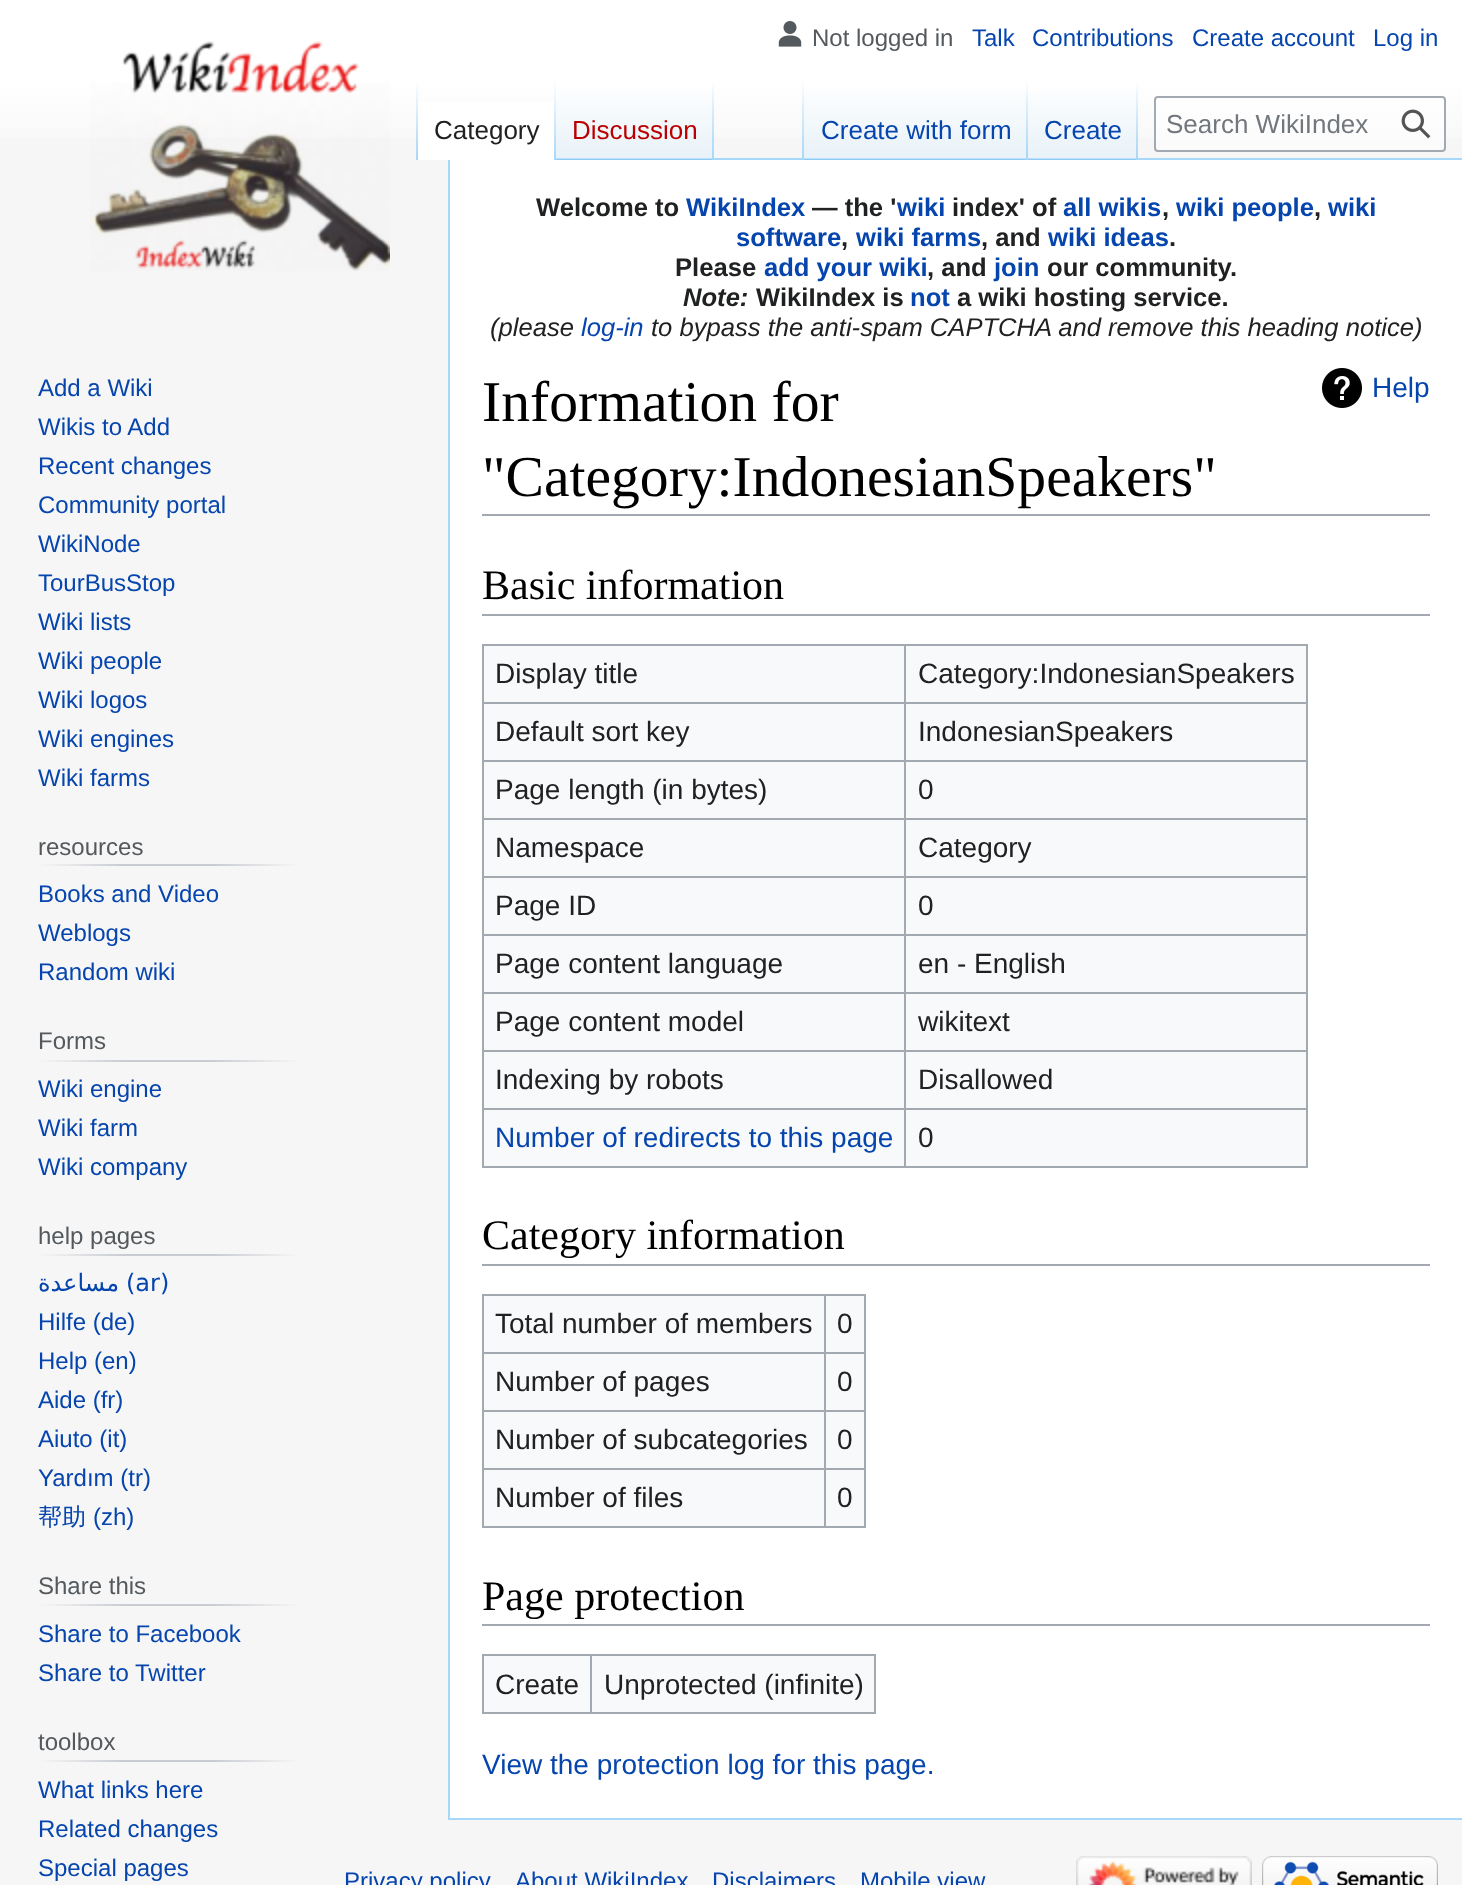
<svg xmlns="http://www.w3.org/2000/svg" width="1462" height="1885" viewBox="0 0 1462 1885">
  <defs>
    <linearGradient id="g1" gradientUnits="userSpaceOnUse" x1="731" y1="0" x2="731" y2="160"><stop offset="0.5" stop-color="rgb(255,255,255)"/><stop offset="1" stop-color="rgb(246,246,246)"/></linearGradient>
    <linearGradient id="g2" gradientUnits="userSpaceOnUse" x1="417" y1="80" x2="417" y2="160"><stop offset="0" stop-color="rgb(167,215,249)" stop-opacity="0"/><stop offset="1" stop-color="rgb(167,215,249)"/></linearGradient>
    <linearGradient id="g3" gradientUnits="userSpaceOnUse" x1="555" y1="80" x2="555" y2="160"><stop offset="0" stop-color="rgb(255,255,255)"/><stop offset="1" stop-color="rgb(167,215,249)"/></linearGradient>
    <linearGradient id="g4" gradientUnits="userSpaceOnUse" x1="635" y1="160" x2="635" y2="80"><stop offset="0" stop-color="rgb(119,193,246)"/><stop offset="0.03" stop-color="rgb(232,242,248)"/><stop offset="1" stop-color="rgb(255,255,255)"/></linearGradient>
    <linearGradient id="g5" gradientUnits="userSpaceOnUse" x1="713" y1="80" x2="713" y2="160"><stop offset="0" stop-color="rgb(167,215,249)" stop-opacity="0"/><stop offset="1" stop-color="rgb(167,215,249)"/></linearGradient>
    <linearGradient id="g6" gradientUnits="userSpaceOnUse" x1="803" y1="80" x2="803" y2="160"><stop offset="0" stop-color="rgb(167,215,249)" stop-opacity="0"/><stop offset="1" stop-color="rgb(167,215,249)"/></linearGradient>
    <linearGradient id="g7" gradientUnits="userSpaceOnUse" x1="916" y1="160" x2="916" y2="80"><stop offset="0" stop-color="rgb(119,193,246)"/><stop offset="0.03" stop-color="rgb(232,242,248)"/><stop offset="1" stop-color="rgb(255,255,255)"/></linearGradient>
    <linearGradient id="g8" gradientUnits="userSpaceOnUse" x1="1027" y1="80" x2="1027" y2="160"><stop offset="0" stop-color="rgb(167,215,249)" stop-opacity="0"/><stop offset="1" stop-color="rgb(167,215,249)"/></linearGradient>
    <linearGradient id="g9" gradientUnits="userSpaceOnUse" x1="1083" y1="160" x2="1083" y2="80"><stop offset="0" stop-color="rgb(119,193,246)"/><stop offset="0.03" stop-color="rgb(232,242,248)"/><stop offset="1" stop-color="rgb(255,255,255)"/></linearGradient>
    <linearGradient id="g10" gradientUnits="userSpaceOnUse" x1="1137" y1="80" x2="1137" y2="160"><stop offset="0" stop-color="rgb(167,215,249)" stop-opacity="0"/><stop offset="1" stop-color="rgb(167,215,249)"/></linearGradient>
    <linearGradient id="g11" gradientUnits="userSpaceOnUse" x1="38" y1="865" x2="300" y2="865"><stop offset="0" stop-color="rgb(246,246,246)"/><stop offset="0.33" stop-color="rgb(200,204,209)"/><stop offset="0.66" stop-color="rgb(200,204,209)"/><stop offset="1" stop-color="rgb(246,246,246)"/></linearGradient>
    <linearGradient id="g12" gradientUnits="userSpaceOnUse" x1="38" y1="1061" x2="300" y2="1061"><stop offset="0" stop-color="rgb(246,246,246)"/><stop offset="0.33" stop-color="rgb(200,204,209)"/><stop offset="0.66" stop-color="rgb(200,204,209)"/><stop offset="1" stop-color="rgb(246,246,246)"/></linearGradient>
    <linearGradient id="g13" gradientUnits="userSpaceOnUse" x1="38" y1="1255" x2="300" y2="1255"><stop offset="0" stop-color="rgb(246,246,246)"/><stop offset="0.33" stop-color="rgb(200,204,209)"/><stop offset="0.66" stop-color="rgb(200,204,209)"/><stop offset="1" stop-color="rgb(246,246,246)"/></linearGradient>
    <linearGradient id="g14" gradientUnits="userSpaceOnUse" x1="38" y1="1605" x2="300" y2="1605"><stop offset="0" stop-color="rgb(246,246,246)"/><stop offset="0.33" stop-color="rgb(200,204,209)"/><stop offset="0.66" stop-color="rgb(200,204,209)"/><stop offset="1" stop-color="rgb(246,246,246)"/></linearGradient>
    <linearGradient id="g15" gradientUnits="userSpaceOnUse" x1="38" y1="1761" x2="300" y2="1761"><stop offset="0" stop-color="rgb(246,246,246)"/><stop offset="0.33" stop-color="rgb(200,204,209)"/><stop offset="0.66" stop-color="rgb(200,204,209)"/><stop offset="1" stop-color="rgb(246,246,246)"/></linearGradient>
  </defs>
  <rect width="100%" height="100%" fill="rgb(246,246,246)"/>
  <rect x="0" y="0" width="1462" height="138" fill="url(#g1)"/>
  <image x="778" y="21" width="24" height="26" href="pic1.png"/>
  <text x="812" y="46" font-family="Liberation Sans" font-size="24" fill="rgb(84,89,93)">Not logged in</text>
  <g font-family="Liberation Sans" font-size="24" fill="rgb(6,69,173)">
    <text x="972" y="46">Talk</text>
    <text x="1032" y="46">Contributions</text>
    <text x="1192" y="46">Create account</text>
    <text x="1373" y="46">Log in</text>
  </g>
  <rect x="416" y="80" width="2" height="80" fill="url(#g2)"/>
  <rect x="448" y="1818" width="1014" height="2" fill="rgb(167,215,249)"/>
  <rect x="448" y="158" width="2" height="1662" fill="rgb(167,215,249)"/>
  <rect x="418" y="102" width="136" height="58" fill="rgb(255,255,255)"/>
  <rect x="554" y="80" width="2" height="80" fill="url(#g3)"/>
  <text x="434" y="139" font-family="Liberation Sans" font-size="26" fill="rgb(32,33,34)">Category</text>
  <rect x="556" y="92" width="158" height="68" fill="url(#g4)"/>
  <rect x="712" y="80" width="2" height="80" fill="url(#g5)"/>
  <text x="572" y="139" font-family="Liberation Sans" font-size="26" fill="rgb(186,0,0)">Discussion</text>
  <rect x="714" y="158" width="748" height="2" fill="rgb(167,215,249)"/>
  <rect x="802" y="80" width="2" height="80" fill="url(#g6)"/>
  <rect x="804" y="92" width="224" height="68" fill="url(#g7)"/>
  <rect x="1026" y="80" width="2" height="80" fill="url(#g8)"/>
  <text x="821" y="139" font-family="Liberation Sans" font-size="26" fill="rgb(6,69,173)">Create with form</text>
  <rect x="1028" y="92" width="110" height="68" fill="url(#g9)"/>
  <rect x="1136" y="80" width="2" height="80" fill="url(#g10)"/>
  <text x="1044" y="139" font-family="Liberation Sans" font-size="26" fill="rgb(6,69,173)">Create</text>
  <rect x="1155" y="97" width="290" height="54" rx="3" fill="rgba(255,255,255,0.5)" stroke="rgb(162,169,177)" stroke-width="2"/>
  <text x="1166" y="133" font-family="Liberation Sans" font-size="26" fill="rgb(114,119,125)">Search WikiIndex</text>
  <image x="1401" y="109" width="30" height="30" href="pic2.png"/>
  <image x="90" y="41" width="300" height="230" href="pic3.png"/>
  <g font-family="Liberation Sans" font-size="24" fill="rgb(6,69,173)">
    <text>
      <tspan x="38" y="396">Add a Wiki</tspan>
      <tspan x="38" y="435">Wikis to Add</tspan>
      <tspan x="38" y="474">Recent changes</tspan>
      <tspan x="38" y="513">Community portal</tspan>
      <tspan x="38" y="552">WikiNode</tspan>
      <tspan x="38" y="591">TourBusStop</tspan>
      <tspan x="38" y="630">Wiki lists</tspan>
      <tspan x="38" y="669">Wiki people</tspan>
      <tspan x="38" y="708">Wiki logos</tspan>
      <tspan x="38" y="747">Wiki engines</tspan>
      <tspan x="38" y="786">Wiki farms</tspan>
    </text>
  </g>
  <rect x="38" y="864" width="262" height="2" fill="url(#g11)"/>
  <text x="38" y="855" font-family="Liberation Sans" font-size="24" fill="rgb(84,89,93)">resources</text>
  <g font-family="Liberation Sans" font-size="24" fill="rgb(6,69,173)">
    <text>
      <tspan x="38" y="902">Books and Video</tspan>
      <tspan x="38" y="941">Weblogs</tspan>
      <tspan x="38" y="980">Random wiki</tspan>
    </text>
  </g>
  <rect x="38" y="1060" width="262" height="2" fill="url(#g12)"/>
  <text x="38" y="1049" font-family="Liberation Sans" font-size="24" fill="rgb(84,89,93)">Forms</text>
  <g font-family="Liberation Sans" font-size="24" fill="rgb(6,69,173)">
    <text>
      <tspan x="38" y="1097">Wiki engine</tspan>
      <tspan x="38" y="1136">Wiki farm</tspan>
      <tspan x="38" y="1175">Wiki company</tspan>
    </text>
  </g>
  <rect x="38" y="1254" width="262" height="2" fill="url(#g13)"/>
  <text x="38" y="1244" font-family="Liberation Sans" font-size="24" fill="rgb(84,89,93)">help pages</text>
  <text x="119" y="1291" font-family="DejaVu Sans" font-size="24" direction="rtl" fill="rgb(6,69,173)">مساعدة</text>
  <text x="126" y="1291" font-family="DejaVu Sans" font-size="24" fill="rgb(6,69,173)">(ar)</text>
  <g font-family="Liberation Sans" font-size="24" fill="rgb(6,69,173)">
    <text>
      <tspan x="38" y="1330">Hilfe (de)</tspan>
      <tspan x="38" y="1369">Help (en)</tspan>
      <tspan x="38" y="1408">Aide (fr)</tspan>
      <tspan x="38" y="1447">Aiuto (it)</tspan>
      <tspan x="38" y="1486">Yardım (tr)</tspan>
    </text>
  </g>
  <text x="38" y="1525" font-family="WenQuanYi Zen Hei" font-size="24" font-weight="500" fill="rgb(6,69,173)">帮助</text>
  <text x="93" y="1525" font-family="Liberation Sans" font-size="24" fill="rgb(6,69,173)">(zh)</text>
  <rect x="38" y="1604" width="262" height="2" fill="url(#g14)"/>
  <text x="38" y="1594" font-family="Liberation Sans" font-size="24" fill="rgb(84,89,93)">Share this</text>
  <g font-family="Liberation Sans" font-size="24" fill="rgb(6,69,173)">
    <text>
      <tspan x="38" y="1642">Share to Facebook</tspan>
      <tspan x="38" y="1681">Share to Twitter</tspan>
    </text>
  </g>
  <rect x="38" y="1760" width="262" height="2" fill="url(#g15)"/>
  <text x="38" y="1750" font-family="Liberation Sans" font-size="24" fill="rgb(84,89,93)">toolbox</text>
  <g font-family="Liberation Sans" font-size="24" fill="rgb(6,69,173)">
    <text>
      <tspan x="38" y="1798">What links here</tspan>
      <tspan x="38" y="1837">Related changes</tspan>
      <tspan x="38" y="1876">Special pages</tspan>
    </text>
  </g>
  <rect x="450" y="160" width="1012" height="1658" fill="rgb(255,255,255)"/>
  <text x="536" y="216" font-family="Liberation Sans" font-size="25.6" font-weight="bold" fill="rgb(32,33,34)">Welcome to</text>
  <text x="686" y="216" font-family="Liberation Sans" font-size="25.6" font-weight="bold" fill="rgb(6,69,173)">WikiIndex</text>
  <text x="812" y="216" font-family="Liberation Sans" font-size="25.6" font-weight="bold" fill="rgb(32,33,34)">— the '</text>
  <text x="897" y="216" font-family="Liberation Sans" font-size="25.6" font-weight="bold" fill="rgb(6,69,173)">wiki</text>
  <text x="952" y="216" font-family="Liberation Sans" font-size="25.6" font-weight="bold" fill="rgb(32,33,34)">index' of</text>
  <text x="1063" y="216" font-family="Liberation Sans" font-size="25.6" font-weight="bold" fill="rgb(6,69,173)">all wikis</text>
  <text x="1162" y="216" font-family="Liberation Sans" font-size="25.6" font-weight="bold" fill="rgb(32,33,34)">,</text>
  <text x="1176" y="216" font-family="Liberation Sans" font-size="25.6" font-weight="bold" fill="rgb(6,69,173)">wiki people</text>
  <text x="1314" y="216" font-family="Liberation Sans" font-size="25.6" font-weight="bold" fill="rgb(32,33,34)">,</text>
  <g font-family="Liberation Sans" font-size="25.6" font-weight="bold" fill="rgb(6,69,173)">
    <text x="1328" y="216">wiki</text>
    <text x="736" y="246">software</text>
  </g>
  <text x="841" y="246" font-family="Liberation Sans" font-size="25.6" font-weight="bold" fill="rgb(32,33,34)">,</text>
  <text x="856" y="246" font-family="Liberation Sans" font-size="25.6" font-weight="bold" fill="rgb(6,69,173)">wiki farms</text>
  <text x="981" y="246" font-family="Liberation Sans" font-size="25.6" font-weight="bold" fill="rgb(32,33,34)">, and</text>
  <text x="1048" y="246" font-family="Liberation Sans" font-size="25.6" font-weight="bold" fill="rgb(6,69,173)">wiki ideas</text>
  <g font-family="Liberation Sans" font-size="25.6" font-weight="bold" fill="rgb(32,33,34)">
    <text x="1169" y="246">.</text>
    <text x="675" y="276">Please</text>
  </g>
  <text x="764" y="276" font-family="Liberation Sans" font-size="25.6" font-weight="bold" fill="rgb(6,69,173)">add your wiki</text>
  <text x="927" y="276" font-family="Liberation Sans" font-size="25.6" font-weight="bold" fill="rgb(32,33,34)">, and</text>
  <text x="994" y="276" font-family="Liberation Sans" font-size="25.6" font-weight="bold" fill="rgb(6,69,173)">join</text>
  <text x="1047" y="276" font-family="Liberation Sans" font-size="25.6" font-weight="bold" fill="rgb(32,33,34)">our community.</text>
  <text x="683" y="306" font-family="Liberation Sans" font-size="25.6" font-weight="bold" font-style="italic" fill="rgb(32,33,34)">Note:</text>
  <text x="756" y="306" font-family="Liberation Sans" font-size="25.6" font-weight="bold" fill="rgb(32,33,34)">WikiIndex is</text>
  <text x="910" y="306" font-family="Liberation Sans" font-size="25.6" font-weight="bold" fill="rgb(6,69,173)">not</text>
  <text x="957" y="306" font-family="Liberation Sans" font-size="25.6" font-weight="bold" fill="rgb(32,33,34)">a wiki hosting service.</text>
  <text x="490" y="336" font-family="Liberation Sans" font-size="25.6" font-style="italic" fill="rgb(32,33,34)">(please</text>
  <text x="581" y="336" font-family="Liberation Sans" font-size="25.6" font-style="italic" fill="rgb(6,69,173)">log-in</text>
  <text x="651" y="336" font-family="Liberation Sans" font-size="25.6" font-style="italic" fill="rgb(32,33,34)">to bypass the anti-spam CAPTCHA and remove this heading notice)</text>
  <rect x="482" y="514" width="948" height="2" fill="rgb(162,169,177)"/>
  <g font-family="Liberation Serif" font-size="57.6" fill="rgb(0,0,0)">
    <text>
      <tspan x="482" y="421">Information for</tspan>
      <tspan x="482" y="496">"Category:IndonesianSpeakers"</tspan>
    </text>
  </g>
  <image x="1322" y="368" width="40" height="40" href="pic4.png"/>
  <text x="1372" y="397" font-family="Liberation Sans" font-size="28" fill="rgb(6,69,173)">Help</text>
  <rect x="482" y="614" width="948" height="2" fill="rgb(162,169,177)"/>
  <text x="482" y="599" font-family="Liberation Serif" font-size="42" fill="rgb(0,0,0)">Basic information</text>
  <rect x="484" y="646" width="822" height="520" fill="rgb(248,249,250)"/>
  <rect x="482" y="644" width="826" height="2" fill="rgb(162,169,177)"/>
  <rect x="1306" y="644" width="2" height="524" fill="rgb(162,169,177)"/>
  <rect x="482" y="1166" width="826" height="2" fill="rgb(162,169,177)"/>
  <rect x="482" y="644" width="2" height="524" fill="rgb(162,169,177)"/>
  <text x="495" y="683" font-family="Liberation Sans" font-size="28" fill="rgb(32,33,34)">Display title</text>
  <rect x="904" y="702" width="404" height="2" fill="rgb(162,169,177)"/>
  <rect x="904" y="760" width="404" height="2" fill="rgb(162,169,177)"/>
  <rect x="904" y="818" width="404" height="2" fill="rgb(162,169,177)"/>
  <rect x="904" y="876" width="404" height="2" fill="rgb(162,169,177)"/>
  <rect x="904" y="934" width="404" height="2" fill="rgb(162,169,177)"/>
  <rect x="904" y="992" width="404" height="2" fill="rgb(162,169,177)"/>
  <rect x="904" y="1050" width="404" height="2" fill="rgb(162,169,177)"/>
  <rect x="904" y="1108" width="404" height="2" fill="rgb(162,169,177)"/>
  <rect x="904" y="1108" width="2" height="60" fill="rgb(162,169,177)"/>
  <rect x="482" y="1108" width="424" height="2" fill="rgb(162,169,177)"/>
  <rect x="904" y="1050" width="2" height="60" fill="rgb(162,169,177)"/>
  <rect x="482" y="1050" width="424" height="2" fill="rgb(162,169,177)"/>
  <rect x="904" y="992" width="2" height="60" fill="rgb(162,169,177)"/>
  <rect x="482" y="992" width="424" height="2" fill="rgb(162,169,177)"/>
  <rect x="904" y="934" width="2" height="60" fill="rgb(162,169,177)"/>
  <rect x="482" y="934" width="424" height="2" fill="rgb(162,169,177)"/>
  <rect x="904" y="876" width="2" height="60" fill="rgb(162,169,177)"/>
  <rect x="482" y="876" width="424" height="2" fill="rgb(162,169,177)"/>
  <rect x="904" y="818" width="2" height="60" fill="rgb(162,169,177)"/>
  <rect x="482" y="818" width="424" height="2" fill="rgb(162,169,177)"/>
  <rect x="904" y="760" width="2" height="60" fill="rgb(162,169,177)"/>
  <rect x="482" y="760" width="424" height="2" fill="rgb(162,169,177)"/>
  <rect x="904" y="702" width="2" height="60" fill="rgb(162,169,177)"/>
  <rect x="482" y="702" width="424" height="2" fill="rgb(162,169,177)"/>
  <rect x="904" y="644" width="2" height="60" fill="rgb(162,169,177)"/>
  <g font-family="Liberation Sans" font-size="28" fill="rgb(32,33,34)">
    <text x="918" y="683">Category:IndonesianSpeakers</text>
    <text x="495" y="741">Default sort key</text>
    <text x="918" y="741">IndonesianSpeakers</text>
    <text x="495" y="799">Page length (in bytes)</text>
    <text x="918" y="799">0</text>
    <text x="495" y="857">Namespace</text>
    <text x="918" y="857">Category</text>
    <text x="495" y="915">Page ID</text>
    <text x="918" y="915">0</text>
    <text x="495" y="973">Page content language</text>
    <text x="918" y="973">en - English</text>
    <text x="495" y="1031">Page content model</text>
    <text x="918" y="1031">wikitext</text>
    <text x="495" y="1089">Indexing by robots</text>
    <text x="918" y="1089">Disallowed</text>
  </g>
  <text x="495" y="1147" font-family="Liberation Sans" font-size="28" fill="rgb(6,69,173)">Number of redirects to this page</text>
  <text x="918" y="1147" font-family="Liberation Sans" font-size="28" fill="rgb(32,33,34)">0</text>
  <rect x="482" y="1264" width="948" height="2" fill="rgb(162,169,177)"/>
  <text x="482" y="1249" font-family="Liberation Serif" font-size="42" fill="rgb(0,0,0)">Category information</text>
  <rect x="484" y="1296" width="380" height="230" fill="rgb(248,249,250)"/>
  <rect x="482" y="1294" width="384" height="2" fill="rgb(162,169,177)"/>
  <rect x="864" y="1294" width="2" height="234" fill="rgb(162,169,177)"/>
  <rect x="482" y="1526" width="384" height="2" fill="rgb(162,169,177)"/>
  <rect x="482" y="1294" width="2" height="234" fill="rgb(162,169,177)"/>
  <text x="495" y="1333" font-family="Liberation Sans" font-size="28" fill="rgb(32,33,34)">Total number of members</text>
  <rect x="824" y="1352" width="42" height="2" fill="rgb(162,169,177)"/>
  <rect x="824" y="1410" width="42" height="2" fill="rgb(162,169,177)"/>
  <rect x="824" y="1468" width="42" height="2" fill="rgb(162,169,177)"/>
  <rect x="824" y="1468" width="2" height="60" fill="rgb(162,169,177)"/>
  <rect x="482" y="1468" width="344" height="2" fill="rgb(162,169,177)"/>
  <rect x="824" y="1410" width="2" height="60" fill="rgb(162,169,177)"/>
  <rect x="482" y="1410" width="344" height="2" fill="rgb(162,169,177)"/>
  <rect x="824" y="1352" width="2" height="60" fill="rgb(162,169,177)"/>
  <rect x="482" y="1352" width="344" height="2" fill="rgb(162,169,177)"/>
  <rect x="824" y="1294" width="2" height="60" fill="rgb(162,169,177)"/>
  <g font-family="Liberation Sans" font-size="28" fill="rgb(32,33,34)">
    <text x="837" y="1333">0</text>
    <text x="495" y="1391">Number of pages</text>
    <text x="837" y="1391">0</text>
    <text x="495" y="1449">Number of subcategories</text>
    <text x="837" y="1449">0</text>
    <text x="495" y="1507">Number of files</text>
    <text x="837" y="1507">0</text>
  </g>
  <rect x="482" y="1624" width="948" height="2" fill="rgb(162,169,177)"/>
  <text x="482" y="1610" font-family="Liberation Serif" font-size="42" fill="rgb(0,0,0)">Page protection</text>
  <rect x="484" y="1656" width="390" height="56" fill="rgb(248,249,250)"/>
  <rect x="482" y="1654" width="394" height="2" fill="rgb(162,169,177)"/>
  <rect x="874" y="1654" width="2" height="60" fill="rgb(162,169,177)"/>
  <rect x="482" y="1712" width="394" height="2" fill="rgb(162,169,177)"/>
  <rect x="482" y="1654" width="2" height="60" fill="rgb(162,169,177)"/>
  <text x="495" y="1694" font-family="Liberation Sans" font-size="28" fill="rgb(32,33,34)">Create</text>
  <rect x="590" y="1654" width="2" height="60" fill="rgb(162,169,177)"/>
  <text x="604" y="1694" font-family="Liberation Sans" font-size="28" fill="rgb(32,33,34)">Unprotected (infinite)</text>
  <text x="482" y="1774" font-family="Liberation Sans" font-size="28" fill="rgb(6,69,173)">View the protection log for this page.</text>
  <g font-family="Liberation Sans" font-size="24" fill="rgb(6,69,173)">
    <text x="344" y="1889">Privacy policy</text>
    <text x="515" y="1889">About WikiIndex</text>
    <text x="712" y="1889">Disclaimers</text>
    <text x="860" y="1889">Mobile view</text>
  </g>
  <image x="1076" y="1856" width="176" height="29" href="pic5.png"/>
  <image x="1262" y="1856" width="176" height="29" href="pic6.png"/>
</svg>
